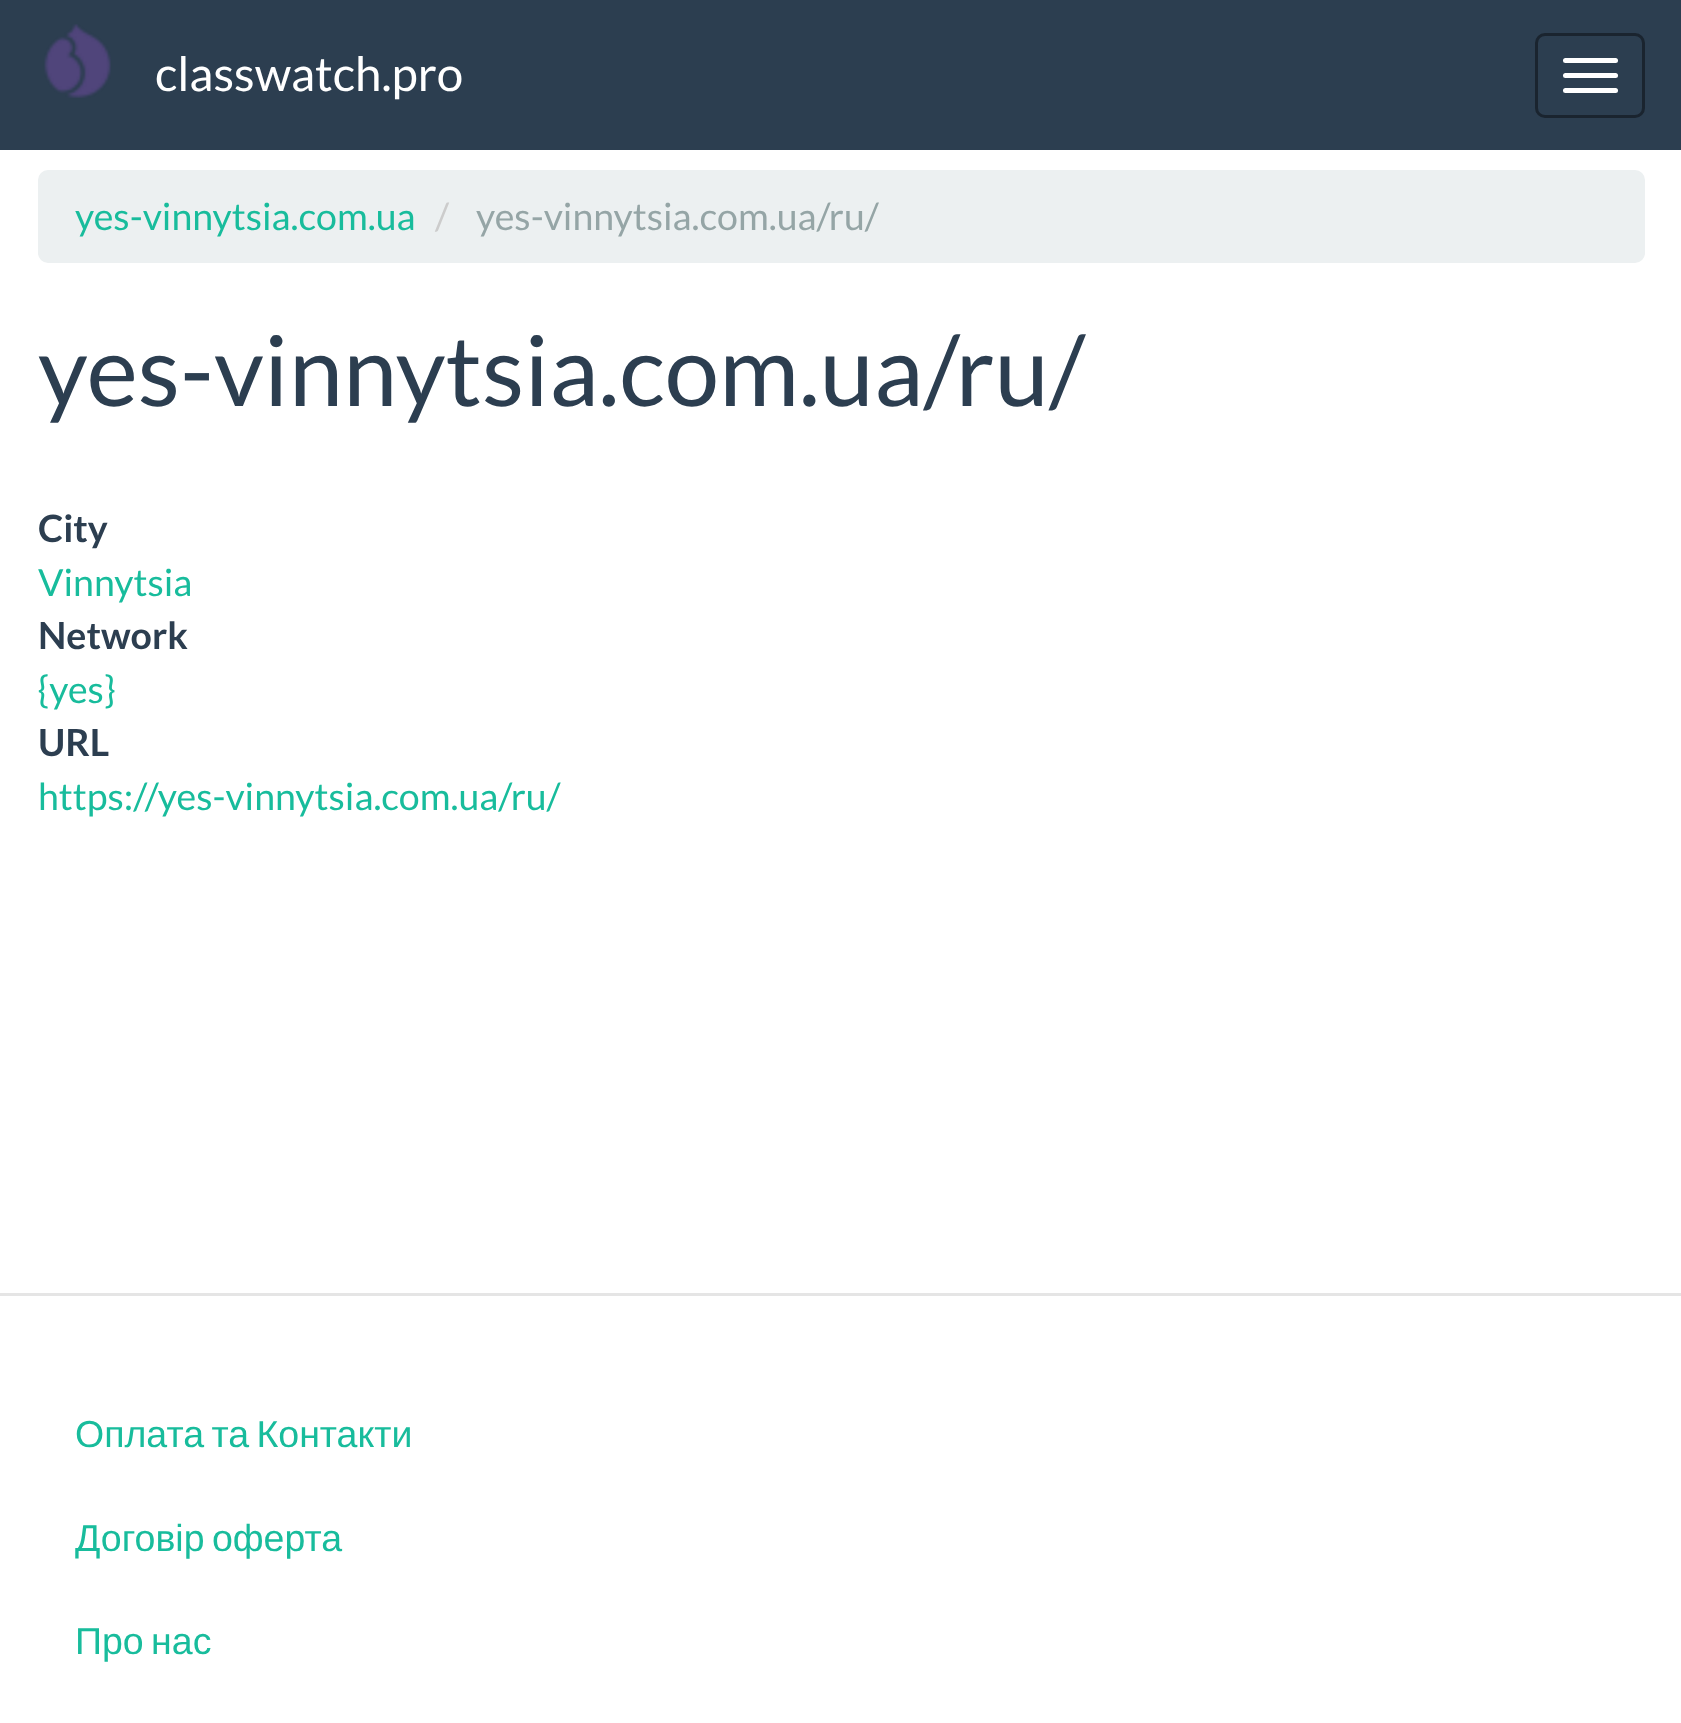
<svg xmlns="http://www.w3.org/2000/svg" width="1681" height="1723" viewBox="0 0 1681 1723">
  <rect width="100%" height="100%" fill="rgb(255,255,255)"/>
  <rect x="0" y="0" width="1681" height="150" fill="rgb(44,62,80)"/>
  <image x="44" y="24" width="67" height="74" href="pic1.png"/>
  <text x="155" y="91" font-family="Lato" font-size="47.5" fill="rgb(255,255,255)">classwatch.pro</text>
  <rect x="1536.5" y="34.5" width="107" height="82" rx="8.5" fill="none" stroke="rgb(26,36,47)" stroke-width="3"/>
  <rect x="1563" y="58" width="55" height="5" rx="2.5" fill="rgb(255,255,255)"/>
  <rect x="1563" y="73" width="55" height="5" rx="2.5" fill="rgb(255,255,255)"/>
  <rect x="1563" y="88" width="55" height="5" rx="2.5" fill="rgb(255,255,255)"/>
  <rect x="38" y="170" width="1607" height="93" rx="10" fill="rgb(236,240,241)"/>
  <text x="75" y="230" font-family="Lato" font-size="37.5" fill="rgb(24,188,156)">yes-vinnytsia.com.ua</text>
  <text x="435" y="230" font-family="Lato" font-size="37.5" fill="rgb(204,204,204)">/</text>
  <text x="476" y="230" font-family="Lato" font-size="37.5" fill="rgb(149,165,166)">yes-vinnytsia.com.ua/ru/</text>
  <text x="38" y="406" font-family="Lato" font-size="97.5" fill="rgb(44,62,80)">yes-vinnytsia.com.ua/ru/</text>
  <text x="38" y="542" font-family="Lato" font-size="37.5" font-weight="bold" fill="rgb(44,62,80)">City</text>
  <text x="38" y="596" font-family="Lato" font-size="37.5" fill="rgb(24,188,156)">Vinnytsia</text>
  <text x="38" y="649" font-family="Lato" font-size="37.5" font-weight="bold" fill="rgb(44,62,80)">Network</text>
  <text x="38" y="703" font-family="Lato" font-size="37.5" fill="rgb(24,188,156)">{yes}</text>
  <text x="38" y="756" font-family="Lato" font-size="37.5" font-weight="bold" fill="rgb(44,62,80)">URL</text>
  <text x="38" y="810" font-family="Lato" font-size="37.5" fill="rgb(24,188,156)">https://yes-vinnytsia.com.ua/ru/</text>
  <rect x="0" y="1293" width="1681" height="3" fill="rgb(229,229,229)"/>
  <g font-family="Liberation Sans" font-size="37.5" fill="rgb(24,188,156)">
    <text x="75" y="1447" word-spacing="-3">Оплата та Контакти</text>
    <text x="75" y="1551" word-spacing="-3">Договір оферта</text>
    <text x="75" y="1654" word-spacing="-3">Про нас</text>
  </g>
</svg>
